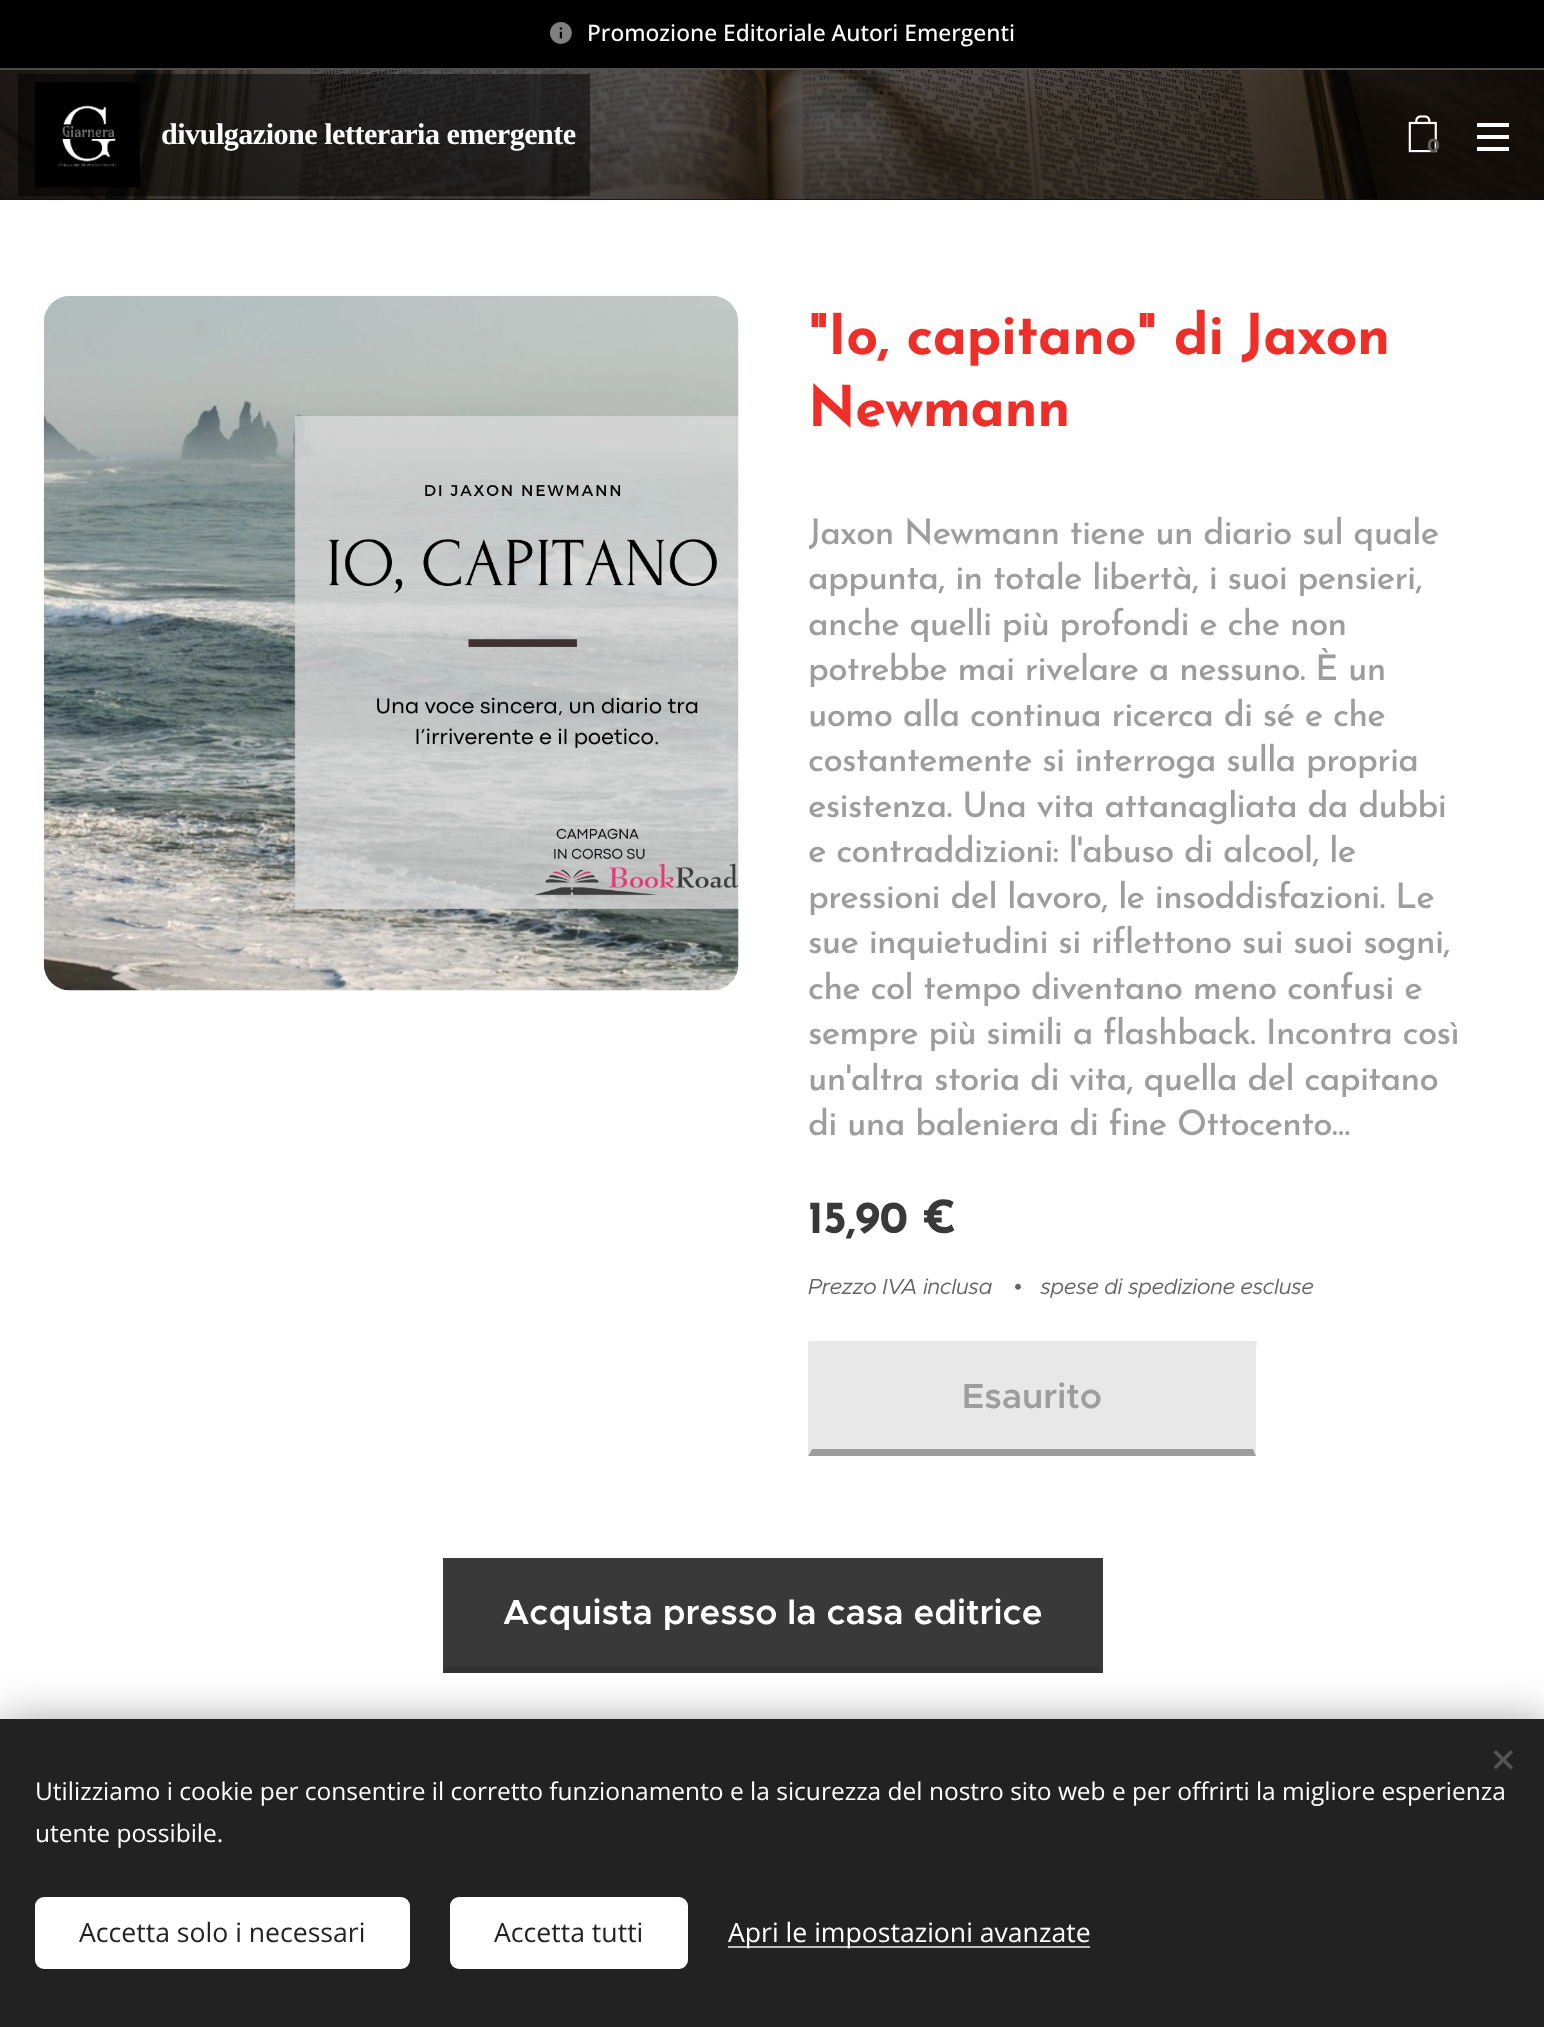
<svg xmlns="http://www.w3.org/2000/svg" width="1544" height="2027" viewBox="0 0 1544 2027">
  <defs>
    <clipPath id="clip1"><rect x="809" y="513" width="658" height="644"/></clipPath>
  </defs>
  <rect width="100%" height="100%" fill="rgb(255,255,255)"/>
  <rect x="0" y="0" width="1544" height="68" fill="rgb(0,0,0)"/>
  <image x="550" y="22" width="22" height="22" href="pic1.png"/>
  <text x="587" y="41" font-family="Open Sans" font-size="22.75" font-weight="500" fill="rgb(255,255,255)">Promozione Editoriale Autori Emergenti</text>
  <rect x="0" y="68" width="1544" height="2" fill="rgb(77,77,77)"/>
  <rect x="0" y="199" width="1544" height="1" fill="rgb(16,16,16)"/>
  <image x="0" y="70" width="1544" height="130" href="pic2.png"/>
  <rect x="18" y="74" width="572" height="122" fill="rgba(0,0,0,0.5)"/>
  <image x="35" y="82" width="105" height="106" href="pic3.png"/>
  <text x="161" y="144" font-family="Tinos" font-size="30.1" font-weight="bold" letter-spacing="-0.5" fill="rgb(255,255,255)">divulgazione letteraria emergente</text>
  <image x="1408" y="115" width="29" height="38" href="pic4.png"/>
  <text x="1427" y="152" font-family="Montserrat" font-size="19" font-weight="bold" fill="rgb(96,92,90)">0</text>
  <rect x="1477" y="135" width="32" height="4" fill="rgb(255,255,255)"/>
  <rect x="1477" y="123" width="32" height="4" fill="rgb(255,255,255)"/>
  <rect x="1477" y="147" width="32" height="4" fill="rgb(255,255,255)"/>
  <image x="43" y="295" width="696" height="696" href="pic5.png"/>
  <g font-family="Josefin Sans" font-size="56" font-weight="bold" letter-spacing="-0.5" fill="rgb(237,46,41)">
    <text>
      <tspan x="808" y="354">"Io, capitano" di Jaxon</tspan>
      <tspan x="808" y="426">Newmann</tspan>
    </text>
  </g>
  <g clip-path="url(#clip1)">
    <text x="808" y="544" font-family="Josefin Sans" font-size="35" font-weight="500" letter-spacing="-0.7" fill="rgb(157,157,157)">Jaxon Newmann tiene un diario sul quale</text>
  </g>
  <g font-family="Josefin Sans" font-size="35" font-weight="500" letter-spacing="-0.7" fill="rgb(157,157,157)">
    <text>
      <tspan x="808" y="589">appunta, in totale libertà, i suoi pensieri,</tspan>
      <tspan x="808" y="635">anche quelli più profondi e che non</tspan>
      <tspan x="808" y="680">potrebbe mai rivelare a nessuno. È un</tspan>
      <tspan x="808" y="726">uomo alla continua ricerca di sé e che</tspan>
      <tspan x="808" y="771">costantemente si interroga sulla propria</tspan>
      <tspan x="808" y="817">esistenza. Una vita attanagliata da dubbi</tspan>
      <tspan x="808" y="862">e contraddizioni: l'abuso di alcool, le</tspan>
      <tspan x="808" y="908">pressioni del lavoro, le insoddisfazioni. Le</tspan>
      <tspan x="808" y="953">sue inquietudini si riflettono sui suoi sogni,</tspan>
      <tspan x="808" y="999">che col tempo diventano meno confusi e</tspan>
      <tspan x="808" y="1044">sempre più simili a flashback. Incontra così</tspan>
      <tspan x="808" y="1090">un'altra storia di vita, quella del capitano</tspan>
      <tspan x="808" y="1135">di una baleniera di fine Ottocento…</tspan>
    </text>
  </g>
  <text x="808" y="1233" font-family="Josefin Sans" font-size="45.5" font-weight="bold" letter-spacing="-0.5" fill="rgb(57,57,57)">15,90 €</text>
  <text x="808" y="1294" font-family="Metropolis" font-size="21.9" font-style="italic" letter-spacing="-0.5" fill="rgb(102,102,102)">Prezzo IVA inclusa</text>
  <text x="1014" y="1294" font-family="Liberation Sans" font-size="21.9" font-style="italic" letter-spacing="-0.5" fill="rgb(102,102,102)">•</text>
  <text x="1040" y="1294" font-family="Metropolis" font-size="21.9" font-style="italic" letter-spacing="-0.5" fill="rgb(102,102,102)">spese di spedizione escluse</text>
  <rect x="812" y="1345" width="441" height="104" fill="rgb(232,232,232)"/>
  <rect x="809" y="1341" width="448" height="4" fill="rgb(232,232,232)"/>
  <path d="M1256 1340V1456L1253 1449V1344Z" fill="rgb(232,232,232)"/>
  <path d="M1256 1456H808L812 1449H1253Z" fill="rgb(156,156,156)"/>
  <path d="M808 1456V1340L812 1344V1449Z" fill="rgb(232,232,232)"/>
  <text x="962" y="1408" font-family="Metropolis" font-size="35" font-weight="600" fill="rgb(157,157,157)">Esaurito</text>
  <rect x="443" y="1558" width="660" height="115" fill="rgb(57,57,57)"/>
  <path d="M1102 1673H443L446 1666H1099Z" fill="rgb(50,50,50)"/>
  <text x="503" y="1624" font-family="Metropolis" font-size="35" font-weight="600" fill="rgb(255,255,255)">Acquista presso la casa editrice</text>
  <rect x="0" y="1719" width="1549" height="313" fill="rgba(0,0,0,0.33)" filter="blur(22px)"/>
  <rect x="0" y="1719" width="1544" height="308" fill="rgb(34,34,34)"/>
  <path d="M1493.5 1767L1510.5 1750L1513 1752.5L1496 1769.5Z" fill="rgb(85,85,85)"/>
  <path d="M1496 1750L1513 1767L1510.5 1769.5L1493.5 1752.5Z" fill="rgb(85,85,85)"/>
  <g font-family="Open Sans" font-size="24.5" fill="rgb(255,255,255)">
    <text>
      <tspan x="35" y="1800">Utilizziamo i cookie per consentire il corretto funzionamento e la sicurezza del nostro sito web e per offrirti la migliore esperienza</tspan>
      <tspan x="35" y="1842">utente possibile.</tspan>
    </text>
  </g>
  <rect x="35" y="1897" width="375" height="72" rx="9" fill="rgb(255,255,255)"/>
  <text x="79" y="1942" font-family="Open Sans" font-size="26.6" fill="rgb(34,34,34)">Accetta solo i necessari</text>
  <rect x="450" y="1897" width="238" height="72" rx="9" fill="rgb(255,255,255)"/>
  <text x="494" y="1942" font-family="Open Sans" font-size="26.6" fill="rgb(34,34,34)">Accetta tutti</text>
  <rect x="728" y="1946" width="362" height="2" fill="rgb(189,189,189)"/>
  <text x="728" y="1942" font-family="Open Sans" font-size="26.6" fill="rgb(255,255,255)">Apri le impostazioni avanzate</text>
</svg>
